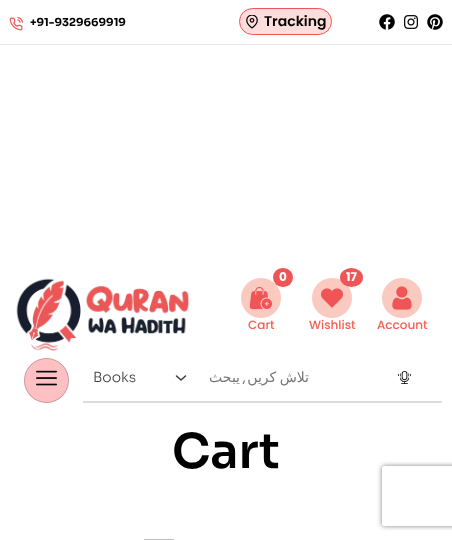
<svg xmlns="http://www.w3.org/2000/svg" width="452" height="540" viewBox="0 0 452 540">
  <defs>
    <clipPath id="clip1"><path d="M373 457H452V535H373ZM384 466H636C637 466 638 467 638 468V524C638 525 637 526 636 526H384C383 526 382 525 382 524V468C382 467 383 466 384 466Z" clip-rule="evenodd"/></clipPath>
  </defs>
  <rect width="100%" height="100%" fill="rgb(255,255,255)"/>
  <rect x="0" y="44" width="452" height="1" fill="rgb(230,230,230)"/>
  <image x="9" y="17" width="14" height="14" href="pic1.png"/>
  <text x="30" y="26" font-family="Sora" font-size="11" font-weight="bold" fill="rgb(0,0,0)">+91-9329669919</text>
  <rect x="239.5" y="8.5" width="92" height="26" rx="13" fill="rgb(255,221,221)" stroke="rgb(239,85,86)"/>
  <image x="246" y="15" width="12" height="14" href="pic2.png"/>
  <text x="264" y="26" font-family="Poppins" font-size="14" font-weight="600" fill="rgb(0,0,0)">Tracking</text>
  <image x="379" y="14" width="16" height="16" href="pic3.png"/>
  <image x="404" y="15" width="14" height="14" href="pic4.png"/>
  <image x="427" y="14" width="16" height="16" href="pic5.png"/>
  <image x="16" y="278" width="174" height="73" href="pic6.png"/>
  <image x="241" y="278" width="40" height="40" href="pic7.png"/>
  <rect x="273" y="268" width="20" height="19" rx="9.5" fill="rgb(239,85,86)"/>
  <text x="279" y="281" font-family="Poppins" font-size="12" font-weight="bold" fill="rgb(255,255,255)">0</text>
  <text x="248" y="329" font-family="Poppins" font-size="12" font-weight="500" fill="rgb(246,93,78)">Cart</text>
  <image x="312" y="278" width="40" height="40" href="pic8.png"/>
  <ellipse cx="351.5" cy="277.5" rx="11.5" ry="9.5" fill="rgb(239,85,86)"/>
  <text x="346" y="281" font-family="Poppins" font-size="12" font-weight="bold" fill="rgb(255,255,255)">17</text>
  <text x="309" y="329" font-family="Poppins" font-size="12" font-weight="500" fill="rgb(246,93,78)">Wishlist</text>
  <image x="382" y="278" width="40" height="40" href="pic9.png"/>
  <text x="377" y="329" font-family="Poppins" font-size="12" font-weight="500" fill="rgb(246,93,78)">Account</text>
  <circle cx="46.5" cy="380.5" r="22.5" fill="rgb(255,192,195)"/>
  <circle cx="46.5" cy="380.5" r="22" fill="none" stroke="rgba(0,0,0,0.2)"/>
  <image x="36" y="370" width="21" height="16" href="pic10.png"/>
  <rect x="83" y="401" width="359" height="2" fill="rgb(221,221,221)"/>
  <path d="M176.5 376L181 380L185.5 376" fill="none" stroke="rgb(52,58,64)" stroke-width="1.5" stroke-linecap="round" stroke-linejoin="round"/>
  <text x="93" y="382" font-family="Sora" font-size="14" font-weight="300" fill="rgb(68,68,68)">Books</text>
  <text x="240" y="382" font-family="DejaVu Sans" font-size="14" direction="rtl" fill="rgb(117,117,117)">يبحث</text>
  <text x="246" y="382" font-family="Sora" font-size="14" direction="rtl" fill="rgb(117,117,117)">,</text>
  <text x="309" y="382" word-spacing="-1" font-family="DejaVu Sans" font-size="14" direction="rtl" fill="rgb(117,117,117)">تلاش کریں</text>
  <image x="398" y="371" width="13" height="13" href="pic11.png"/>
  <text x="172" y="468" font-family="Sora" font-size="48" font-weight="600" fill="rgb(0,0,0)">Cart</text>
  <image x="144" y="539" width="30" height="1" href="pic12.png"/>
  <g clip-path="url(#clip1)">
    <rect x="382" y="466" width="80" height="60" rx="2" fill="rgb(128,128,128)" filter="blur(2.5px)"/>
  </g>
</svg>
